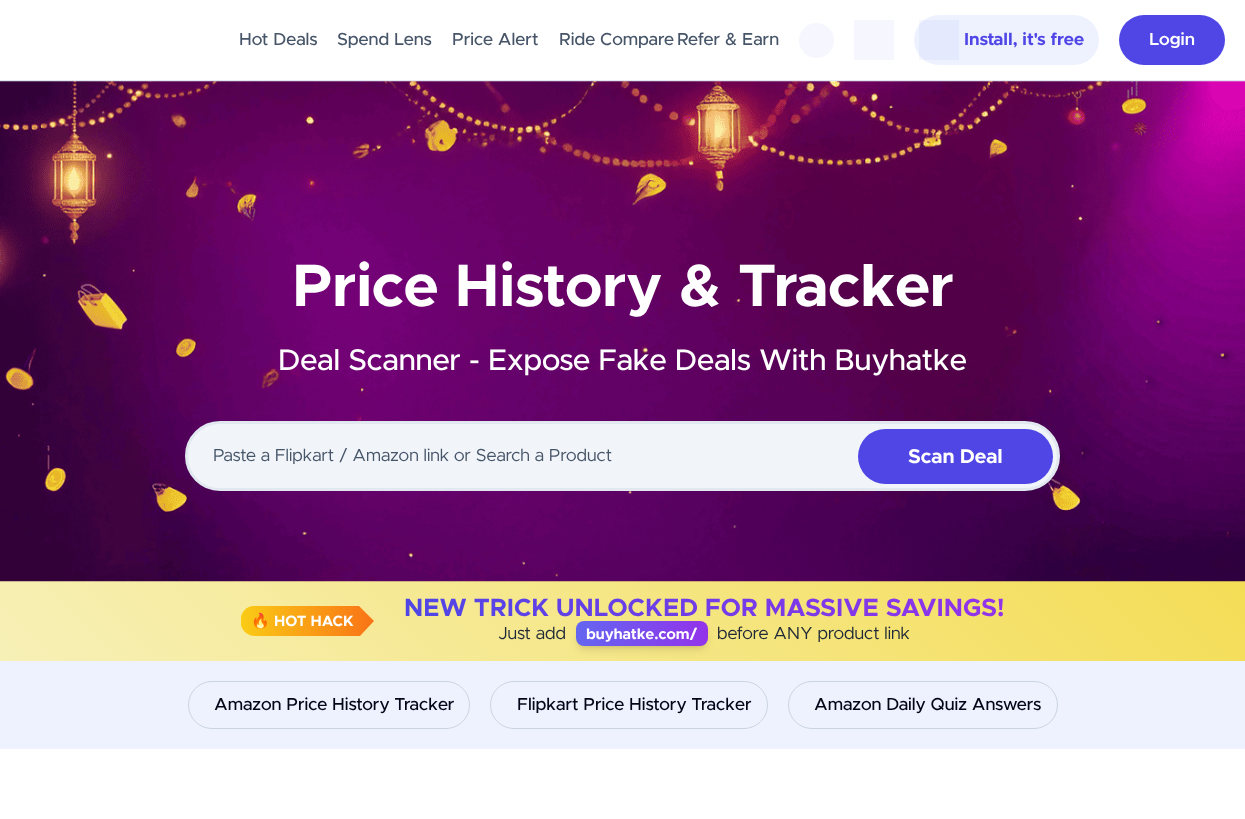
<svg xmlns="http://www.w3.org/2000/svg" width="1245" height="819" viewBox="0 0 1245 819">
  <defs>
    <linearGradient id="g1" gradientUnits="userSpaceOnUse" x1="404" y1="609" x2="1004" y2="609"><stop offset="0" stop-color="rgb(79,70,229)"/><stop offset="1" stop-color="rgb(147,51,234)"/></linearGradient>
    <linearGradient id="g2" gradientUnits="userSpaceOnUse" x1="291" y1="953" x2="954" y2="290"><stop offset="0" stop-color="rgb(247,240,183)"/><stop offset="1" stop-color="rgb(244,221,86)"/></linearGradient>
    <linearGradient id="g3" gradientUnits="userSpaceOnUse" x1="240" y1="621" x2="374" y2="621"><stop offset="0" stop-color="rgb(250,204,21)"/><stop offset="1" stop-color="rgb(249,115,22)"/></linearGradient>
    <linearGradient id="g4" gradientUnits="userSpaceOnUse" x1="576" y1="634" x2="708" y2="634"><stop offset="0" stop-color="rgb(99,102,241)"/><stop offset="1" stop-color="rgb(147,51,234)"/></linearGradient>
  </defs>
  <rect width="100%" height="100%" fill="rgb(255,255,255)"/>
  <rect x="0" y="80" width="1245" height="1" fill="rgb(226,232,240)"/>
  <g font-family="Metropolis" font-size="17.5" font-weight="500" fill="rgb(71,85,105)">
    <text x="239" y="45">Hot Deals</text>
    <text x="337" y="45">Spend Lens</text>
    <text x="452" y="45">Price Alert</text>
    <text x="559" y="45">Ride Compare</text>
    <text x="677" y="45">Refer &amp; Earn</text>
  </g>
  <circle cx="816.5" cy="40.5" r="17.5" fill="rgb(246,246,254)"/>
  <rect x="854" y="20" width="40" height="40" fill="rgb(246,246,254)"/>
  <rect x="914" y="15" width="185" height="50" rx="25" fill="rgb(238,242,255)"/>
  <rect x="919" y="20" width="40" height="40" fill="rgba(79,70,229,0.05)"/>
  <text x="964" y="45" font-family="Metropolis" font-size="17.5" font-weight="bold" fill="rgb(79,70,229)">Install, it's free</text>
  <rect x="1119" y="15" width="106" height="50" rx="25" fill="rgb(79,70,229)"/>
  <text x="1149" y="45" font-family="Metropolis" font-size="17.5" font-weight="600" fill="rgb(255,255,255)">Login</text>
  <rect x="0" y="581" width="1245" height="80" fill="url(#g2)"/>
  <image x="0" y="81" width="1245" height="501" href="pic1.png"/>
  <text x="292" y="306" font-family="Metropolis" font-size="60" font-weight="bold" fill="rgb(255,255,255)">Price History &amp; Tracker</text>
  <text x="278" y="370" font-family="Metropolis" font-size="30" font-weight="500" fill="rgb(255,255,255)">Deal Scanner - Expose Fake Deals With Buyhatke</text>
  <rect x="186.5" y="422.5" width="872" height="67" rx="33.5" fill="rgb(241,245,249)" stroke="rgb(226,232,240)" stroke-width="3"/>
  <text x="213" y="461" font-family="Metropolis" font-size="17.5" fill="rgb(71,85,105)">Paste a Flipkart / Amazon link or Search a Product</text>
  <rect x="858" y="429" width="195" height="55" rx="27.5" fill="rgb(79,70,229)"/>
  <text x="908" y="463" font-family="Metropolis" font-size="20" font-weight="bold" fill="rgb(255,255,255)">Scan Deal</text>
  <path d="M359 606L374 621L360 636H255C248 636 242 631 241 625V617C242 611 247 607 252 606Z" fill="url(#g3)"/>
  <text x="251" y="626" font-family="Noto Color Emoji" font-size="15" font-weight="bold" fill="rgb(255,255,255)">🔥</text>
  <text x="274" y="626" font-family="Metropolis" font-size="15" font-weight="bold" fill="rgb(255,255,255)">HOT HACK</text>
  <text x="404" y="616" font-family="Metropolis" font-size="25" font-weight="bold" fill="url(#g1)">NEW TRICK UNLOCKED FOR MASSIVE SAVINGS!</text>
  <text x="498" y="639" font-family="Metropolis" font-size="17.5" fill="rgb(31,41,55)">Just add</text>
  <rect x="579" y="626" width="126" height="20" rx="5" fill="rgba(0,0,0,0.1)" filter="blur(2.5px)"/>
  <rect x="578" y="628" width="128" height="22" rx="6" fill="rgba(0,0,0,0.1)" filter="blur(4px)"/>
  <rect x="576" y="621" width="132" height="25" rx="8" fill="url(#g4)"/>
  <text x="586" y="639" font-family="Metropolis" font-size="15" font-weight="bold" fill="rgb(255,255,255)">buyhatke.com/</text>
  <text x="717" y="639" font-family="Metropolis" font-size="17.5" fill="rgb(31,41,55)">before ANY product link</text>
  <rect x="0" y="661" width="1245" height="88" fill="rgb(238,242,255)"/>
  <rect x="188.5" y="681.5" width="281" height="47" rx="23.5" fill="none" stroke="rgb(203,213,225)"/>
  <text x="214" y="710" font-family="Metropolis" font-size="17.5" font-weight="500" fill="rgb(2,6,23)">Amazon Price History Tracker</text>
  <rect x="490.5" y="681.5" width="277" height="47" rx="23.5" fill="none" stroke="rgb(203,213,225)"/>
  <text x="517" y="710" font-family="Metropolis" font-size="17.5" font-weight="500" fill="rgb(2,6,23)">Flipkart Price History Tracker</text>
  <rect x="788.5" y="681.5" width="269" height="47" rx="23.5" fill="none" stroke="rgb(203,213,225)"/>
  <text x="814" y="710" font-family="Metropolis" font-size="17.5" font-weight="500" fill="rgb(2,6,23)">Amazon Daily Quiz Answers</text>
</svg>
